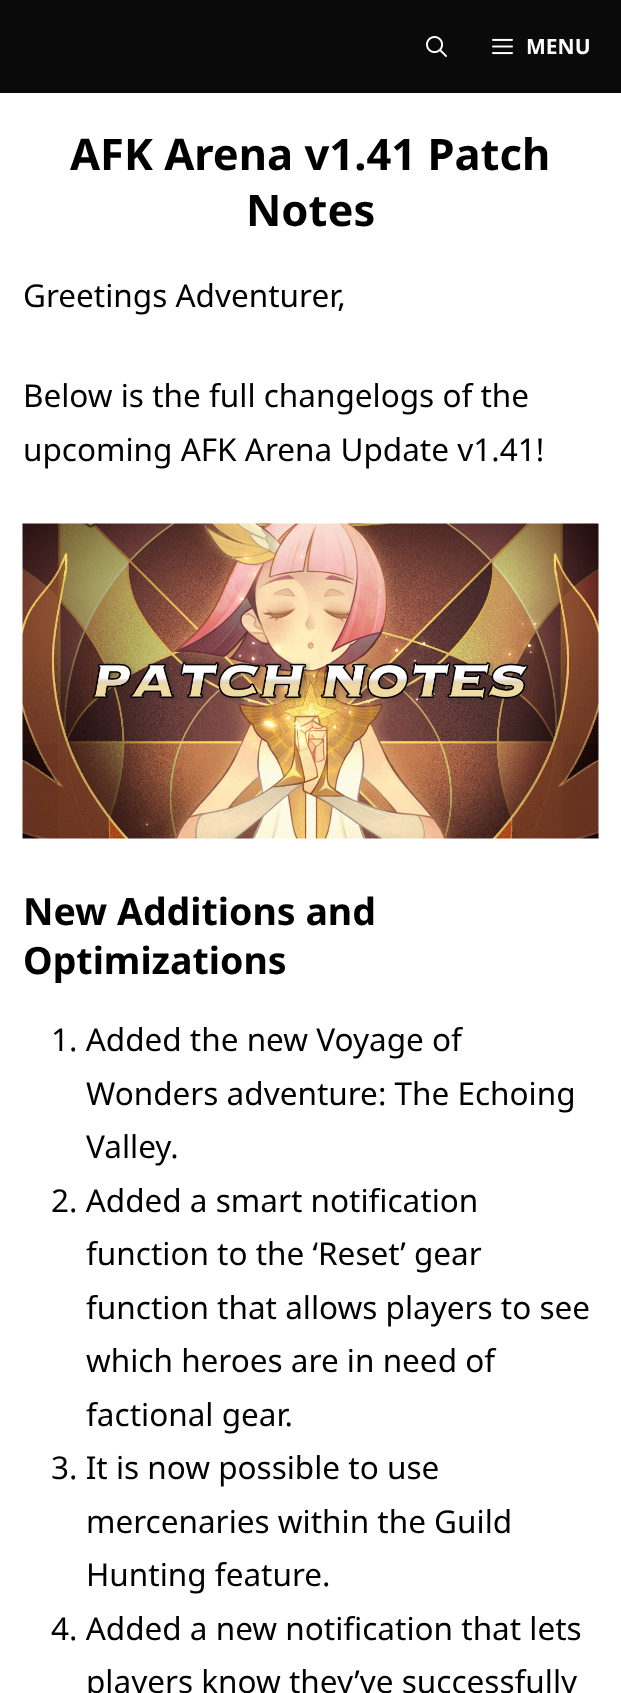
<svg xmlns="http://www.w3.org/2000/svg" width="621" height="1693" viewBox="0 0 621 1693">
  <rect width="100%" height="100%" fill="rgb(10,10,10)"/>
  <image x="426" y="36" width="21" height="21" href="pic1.png"/>
  <image x="492" y="38" width="21" height="17" href="pic2.png"/>
  <text x="526" y="54" font-family="Noto Sans" font-size="21" font-weight="bold" fill="rgb(255,255,255)">MENU</text>
  <rect x="0" y="93" width="621" height="1600" fill="rgb(255,255,255)"/>
  <g font-family="Noto Sans" font-size="43.5" font-weight="bold" fill="rgb(0,0,0)">
    <text x="70" y="170">AFK Arena v1.41 Patch</text>
    <text x="246" y="226">Notes</text>
  </g>
  <g font-family="Noto Sans" font-size="31.5" fill="rgb(0,0,0)">
    <text x="23" y="307">Greetings Adventurer,</text>
    <text>
      <tspan x="23" y="407">Below is the full changelogs of the</tspan>
      <tspan x="23" y="461">upcoming AFK Arena Update v1.41!</tspan>
    </text>
  </g>
  <image x="22" y="523" width="577" height="316" href="pic3.png"/>
  <g font-family="Noto Sans" font-size="37.5" font-weight="bold" fill="rgb(0,0,0)">
    <text>
      <tspan x="23" y="925">New Additions and</tspan>
      <tspan x="23" y="974">Optimizations</tspan>
    </text>
  </g>
  <g font-family="Noto Sans" font-size="31.5" fill="rgb(0,0,0)">
    <text x="51" y="1051">1. Added the new Voyage of</text>
    <text>
      <tspan x="86" y="1105">Wonders adventure: The Echoing</tspan>
      <tspan x="86" y="1158">Valley.</tspan>
    </text>
    <text x="51" y="1212">2. Added a smart notification</text>
    <text>
      <tspan x="86" y="1265">function to the ‘Reset’ gear</tspan>
      <tspan x="86" y="1319">function that allows players to see</tspan>
      <tspan x="86" y="1372">which heroes are in need of</tspan>
      <tspan x="86" y="1426">factional gear.</tspan>
    </text>
    <text x="51" y="1479">3. It is now possible to use</text>
    <text>
      <tspan x="86" y="1533">mercenaries within the Guild</tspan>
      <tspan x="86" y="1586">Hunting feature.</tspan>
    </text>
    <text x="51" y="1640">4. Added a new notification that lets</text>
    <text x="86" y="1693">players know they’ve successfully</text>
  </g>
</svg>
